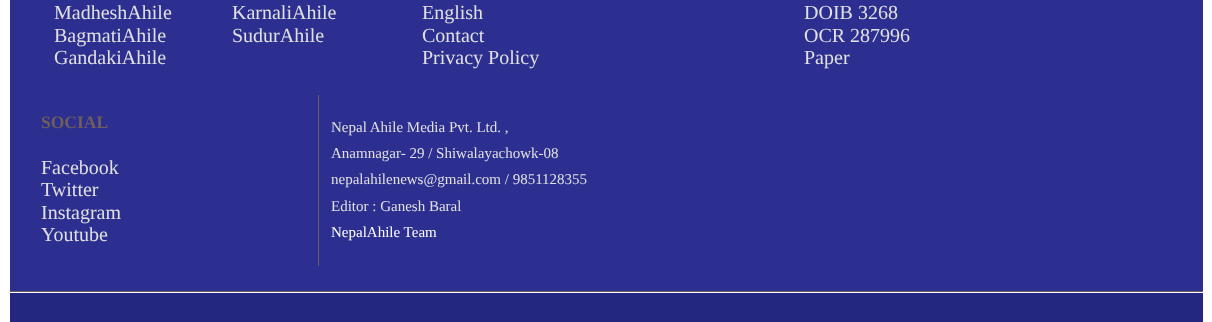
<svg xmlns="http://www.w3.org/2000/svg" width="1212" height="322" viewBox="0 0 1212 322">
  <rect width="100%" height="100%" fill="rgb(255,255,255)"/>
  <rect x="10" y="0" width="1193" height="291" fill="rgb(44,47,143)"/>
  <g font-family="Liberation Serif" font-size="20" fill="rgb(224,224,224)">
    <text>
      <tspan x="54" y="19">MadheshAhile</tspan>
      <tspan x="54" y="42">BagmatiAhile</tspan>
      <tspan x="54" y="64">GandakiAhile</tspan>
    </text>
    <text>
      <tspan x="232" y="19">KarnaliAhile</tspan>
      <tspan x="232" y="42">SudurAhile</tspan>
    </text>
    <text>
      <tspan x="422" y="19">English</tspan>
      <tspan x="422" y="42">Contact</tspan>
      <tspan x="422" y="64">Privacy Policy</tspan>
    </text>
    <text>
      <tspan x="804" y="19">DOIB 3268</tspan>
      <tspan x="804" y="42">OCR 287996</tspan>
      <tspan x="804" y="64">Paper</tspan>
    </text>
  </g>
  <text x="41" y="128" font-family="Liberation Serif" font-size="17.5" font-weight="bold" fill="rgb(111,94,92)">SOCIAL</text>
  <g font-family="Liberation Serif" font-size="20" fill="rgb(224,224,224)">
    <text>
      <tspan x="41" y="174">Facebook</tspan>
      <tspan x="41" y="196">Twitter</tspan>
      <tspan x="41" y="219">Instagram</tspan>
      <tspan x="41" y="241">Youtube</tspan>
    </text>
  </g>
  <rect x="318" y="95" width="1" height="171" fill="rgb(111,94,92)"/>
  <g font-family="Liberation Serif" font-size="15" fill="rgb(224,224,224)">
    <text>
      <tspan x="331" y="132">Nepal Ahile Media Pvt. Ltd. ,</tspan>
      <tspan x="331" y="158">Anamnagar- 29 / Shiwalayachowk-08</tspan>
      <tspan x="331" y="184">nepalahilenews@gmail.com / 9851128355</tspan>
      <tspan x="331" y="211">Editor : Ganesh Baral</tspan>
    </text>
  </g>
  <text x="331" y="237" font-family="Liberation Serif" font-size="15" fill="rgb(255,255,255)">NepalAhile Team</text>
  <rect x="10" y="293" width="1193" height="29" fill="rgb(36,39,128)"/>
  <rect x="10" y="291" width="1193" height="1" fill="rgb(111,94,92)"/>
</svg>
